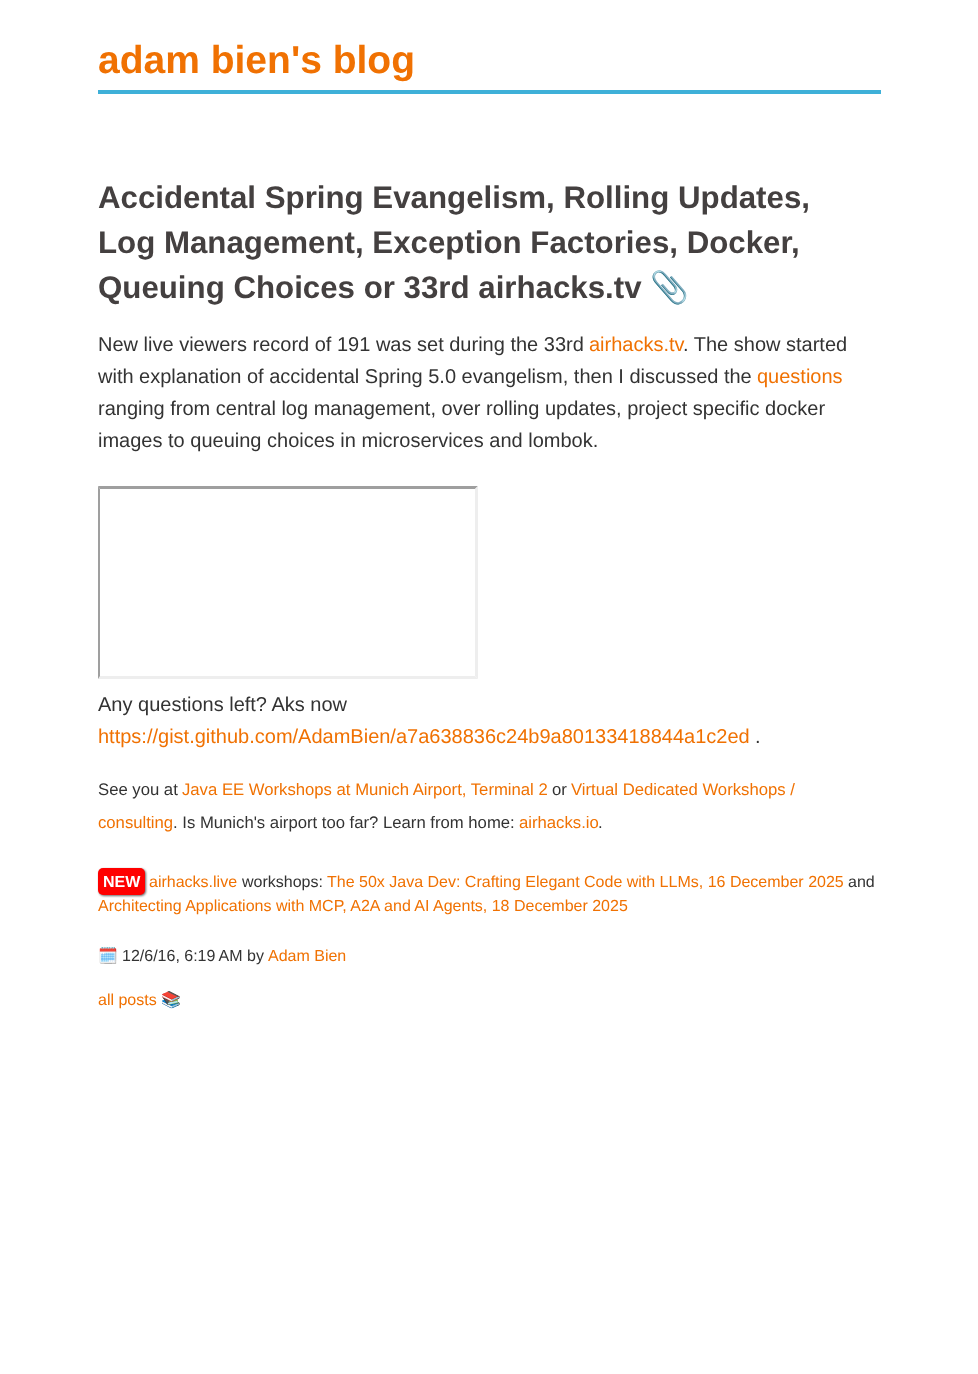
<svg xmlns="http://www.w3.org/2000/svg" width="978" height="1374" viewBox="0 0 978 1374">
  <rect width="100%" height="100%" fill="rgb(255,255,255)"/>
  <rect x="98" y="90" width="783" height="4" fill="rgb(62,176,216)"/>
  <text x="98" y="73" font-family="Liberation Sans" font-size="39" font-weight="bold" fill="rgb(240,113,2)">adam bien's blog</text>
  <g font-family="Liberation Sans" font-size="31.25" font-weight="bold" fill="rgb(68,64,64)">
    <text>
      <tspan x="98" y="208">Accidental Spring Evangelism, Rolling Updates,</tspan>
      <tspan x="98" y="253">Log Management, Exception Factories, Docker,</tspan>
      <tspan x="98" y="298">Queuing Choices or 33rd airhacks.tv</tspan>
    </text>
  </g>
  <text x="650" y="298" font-family="Noto Color Emoji" font-size="31.25" font-weight="bold" fill="rgb(68,64,64)">📎</text>
  <text x="98" y="351" font-family="Liberation Sans" font-size="20" fill="rgb(51,51,51)">New live viewers record of 191 was set during the 33rd</text>
  <text x="589" y="351" font-family="Liberation Sans" font-size="20" fill="rgb(240,113,2)">airhacks.tv</text>
  <g font-family="Liberation Sans" font-size="20" fill="rgb(51,51,51)">
    <text x="683" y="351">. The show started</text>
    <text x="98" y="383">with explanation of accidental Spring 5.0 evangelism, then I discussed the</text>
  </g>
  <text x="757" y="383" font-family="Liberation Sans" font-size="20" fill="rgb(240,113,2)">questions</text>
  <g font-family="Liberation Sans" font-size="20" fill="rgb(51,51,51)">
    <text>
      <tspan x="98" y="415">ranging from central log management, over rolling updates, project specific docker</tspan>
      <tspan x="98" y="447">images to queuing choices in microservices and lombok.</tspan>
    </text>
  </g>
  <path d="M98 486H478L475 489H100Z" fill="rgb(159,159,159)"/>
  <path d="M478 486V679L475 676V489Z" fill="rgb(238,238,238)"/>
  <path d="M478 679H98L100 676H475Z" fill="rgb(238,238,238)"/>
  <path d="M98 679V486L100 489V676Z" fill="rgb(159,159,159)"/>
  <text x="98" y="711" font-family="Liberation Sans" font-size="20" fill="rgb(51,51,51)">Any questions left? Aks now</text>
  <text x="98" y="743" font-family="Liberation Sans" font-size="20" fill="rgb(240,113,2)">https://gist.github.com/AdamBien/a7a638836c24b9a80133418844a1c2ed</text>
  <text x="755" y="743" font-family="Liberation Sans" font-size="20" fill="rgb(51,51,51)">.</text>
  <text x="98" y="795" font-family="Liberation Sans" font-size="16.7" fill="rgb(51,51,51)">See you at</text>
  <text x="182" y="795" font-family="Liberation Sans" font-size="16.7" fill="rgb(240,113,2)">Java EE Workshops at Munich Airport, Terminal 2</text>
  <text x="552" y="795" font-family="Liberation Sans" font-size="16.7" fill="rgb(51,51,51)">or</text>
  <g font-family="Liberation Sans" font-size="16.7" fill="rgb(240,113,2)">
    <text x="571" y="795">Virtual Dedicated Workshops /</text>
    <text x="98" y="828">consulting</text>
  </g>
  <text x="173" y="828" font-family="Liberation Sans" font-size="16.7" fill="rgb(51,51,51)">. Is Munich's airport too far? Learn from home:</text>
  <text x="519" y="828" font-family="Liberation Sans" font-size="16.7" fill="rgb(240,113,2)">airhacks.io</text>
  <text x="598" y="828" font-family="Liberation Sans" font-size="16.7" fill="rgb(51,51,51)">.</text>
  <rect x="99" y="869" width="47" height="27" rx="5" fill="rgba(0,0,0,0.6)" filter="blur(1px)"/>
  <rect x="98" y="868" width="47" height="27" rx="5" fill="rgb(255,0,0)"/>
  <text x="103" y="887" font-family="Liberation Sans" font-size="16" font-weight="bold" fill="rgb(255,255,255)">NEW</text>
  <text x="149" y="887" font-family="Liberation Sans" font-size="16" fill="rgb(240,113,2)">airhacks.live</text>
  <text x="242" y="887" font-family="Liberation Sans" font-size="16" fill="rgb(51,51,51)">workshops:</text>
  <text x="327" y="887" font-family="Liberation Sans" font-size="16" fill="rgb(240,113,2)">The 50x Java Dev: Crafting Elegant Code with LLMs, 16 December 2025</text>
  <text x="848" y="887" font-family="Liberation Sans" font-size="16" fill="rgb(51,51,51)">and</text>
  <text x="98" y="911" font-family="Liberation Sans" font-size="16" fill="rgb(240,113,2)">Architecting Applications with MCP, A2A and AI Agents, 18 December 2025</text>
  <text x="98" y="961" font-family="Noto Color Emoji" font-size="16" fill="rgb(51,51,51)">🗓️</text>
  <g font-family="Liberation Sans" font-size="16" fill="rgb(51,51,51)">
    <text x="122" y="961">12/6/16, 6:19 AM</text>
    <text x="247" y="961">by</text>
  </g>
  <g font-family="Liberation Sans" font-size="16" fill="rgb(240,113,2)">
    <text x="268" y="961">Adam Bien</text>
    <text x="98" y="1005">all posts</text>
  </g>
  <text x="161" y="1005" font-family="Noto Color Emoji" font-size="16" fill="rgb(240,113,2)">📚</text>
</svg>
